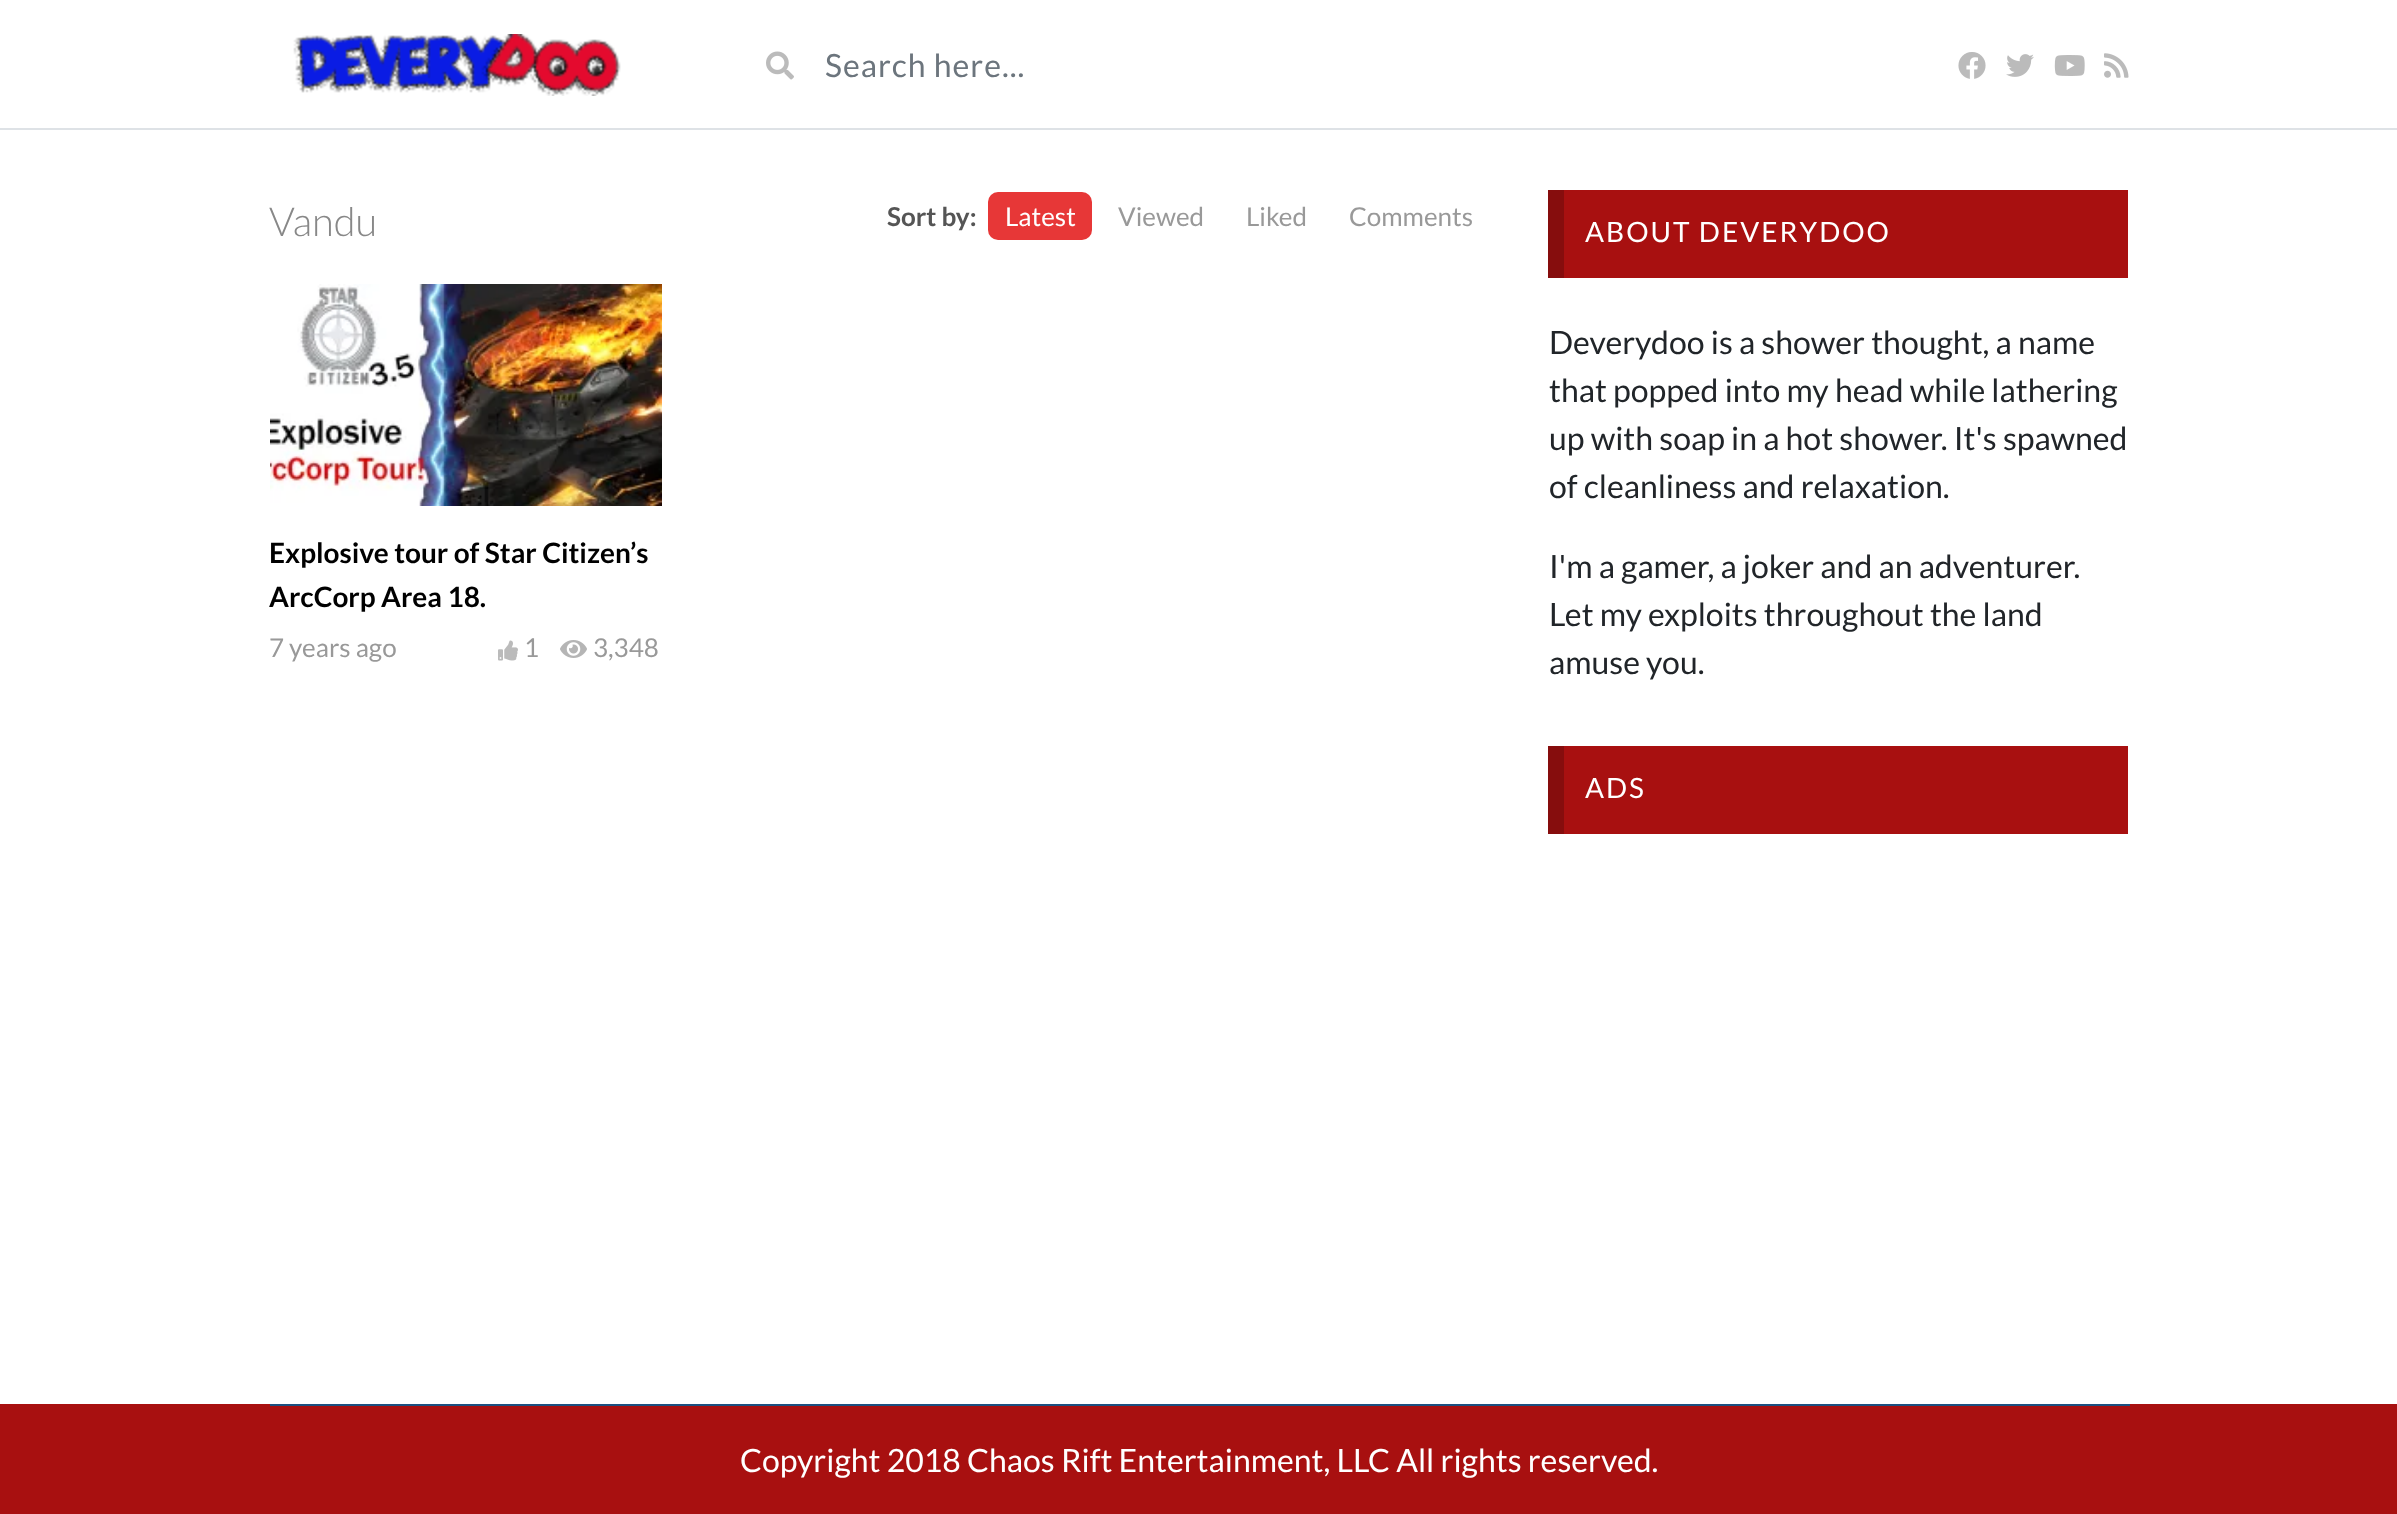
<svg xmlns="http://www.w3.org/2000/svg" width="2397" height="1514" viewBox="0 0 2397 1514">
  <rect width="100%" height="100%" fill="rgb(255,255,255)"/>
  <rect x="0" y="128" width="2397" height="2" fill="rgb(222,226,230)"/>
  <image x="293" y="34" width="328" height="62" href="pic1.png"/>
  <image x="766" y="51" width="28" height="29" href="pic2.png"/>
  <text x="825" y="77" font-family="Lato" font-size="32" letter-spacing="1" fill="rgb(108,117,125)">Search here...</text>
  <image x="1958" y="52" width="28" height="27" href="pic3.png"/>
  <image x="2006" y="54" width="28" height="23" href="pic4.png"/>
  <image x="2054" y="55" width="31" height="21" href="pic5.png"/>
  <image x="2104" y="53" width="25" height="25" href="pic6.png"/>
  <text x="269" y="236" font-family="Lato" font-size="40" font-weight="300" fill="rgb(136,136,136)">Vandu</text>
  <text x="887" y="226" font-family="Lato" font-size="26" font-weight="bold" fill="rgb(85,85,85)">Sort by:</text>
  <rect x="988" y="192" width="104" height="48" rx="10" fill="rgb(231,55,55)"/>
  <text x="1005" y="226" font-family="Lato" font-size="26" fill="rgb(255,255,255)">Latest</text>
  <g font-family="Lato" font-size="26" fill="rgb(153,153,153)">
    <text x="1118" y="226">Viewed</text>
    <text x="1246" y="226">Liked</text>
    <text x="1349" y="226">Comments</text>
  </g>
  <image x="270" y="284" width="392" height="222" href="pic7.png"/>
  <g font-family="Lato" font-size="28" font-weight="bold" fill="rgb(0,0,0)">
    <text>
      <tspan x="269" y="563">Explosive tour of Star Citizen’s</tspan>
      <tspan x="269" y="607">ArcCorp Area 18.</tspan>
    </text>
  </g>
  <text x="269" y="657" font-family="Lato" font-size="26" fill="rgb(153,153,153)">7 years ago</text>
  <image x="498" y="640" width="20" height="21" href="pic8.png"/>
  <text x="524" y="657" font-family="Lato" font-size="26" fill="rgb(153,153,153)">1</text>
  <image x="560" y="640" width="27" height="18" href="pic9.png"/>
  <text x="593" y="657" font-family="Lato" font-size="26" fill="rgb(153,153,153)">3,348</text>
  <rect x="1564" y="190" width="564" height="88" fill="rgb(168,16,16)"/>
  <rect x="1548" y="190" width="16" height="88" fill="rgb(134,13,13)"/>
  <text x="1585" y="242" font-family="Lato" font-size="28" letter-spacing="2" fill="rgb(255,255,255)">ABOUT DEVERYDOO</text>
  <g font-family="Lato" font-size="32" fill="rgb(33,37,41)">
    <text>
      <tspan x="1549" y="354">Deverydoo is a shower thought, a name</tspan>
      <tspan x="1549" y="402">that popped into my head while lathering</tspan>
      <tspan x="1549" y="450">up with soap in a hot shower. It's spawned</tspan>
      <tspan x="1549" y="498">of cleanliness and relaxation.</tspan>
    </text>
    <text>
      <tspan x="1549" y="578">I'm a gamer, a joker and an adventurer.</tspan>
      <tspan x="1549" y="626">Let my exploits throughout the land</tspan>
      <tspan x="1549" y="674">amuse you.</tspan>
    </text>
  </g>
  <rect x="1564" y="746" width="564" height="88" fill="rgb(168,16,16)"/>
  <rect x="1548" y="746" width="16" height="88" fill="rgb(134,13,13)"/>
  <text x="1585" y="798" font-family="Lato" font-size="28" letter-spacing="2" fill="rgb(255,255,255)">ADS</text>
  <rect x="0" y="1404" width="2397" height="110" fill="rgb(168,16,16)"/>
  <rect x="270" y="1404" width="1860" height="2" fill="rgb(27,79,128)"/>
  <text x="740" y="1472" font-family="Lato" font-size="32" fill="rgb(255,255,255)">Copyright 2018 Chaos Rift Entertainment, LLC All rights reserved.</text>
</svg>
